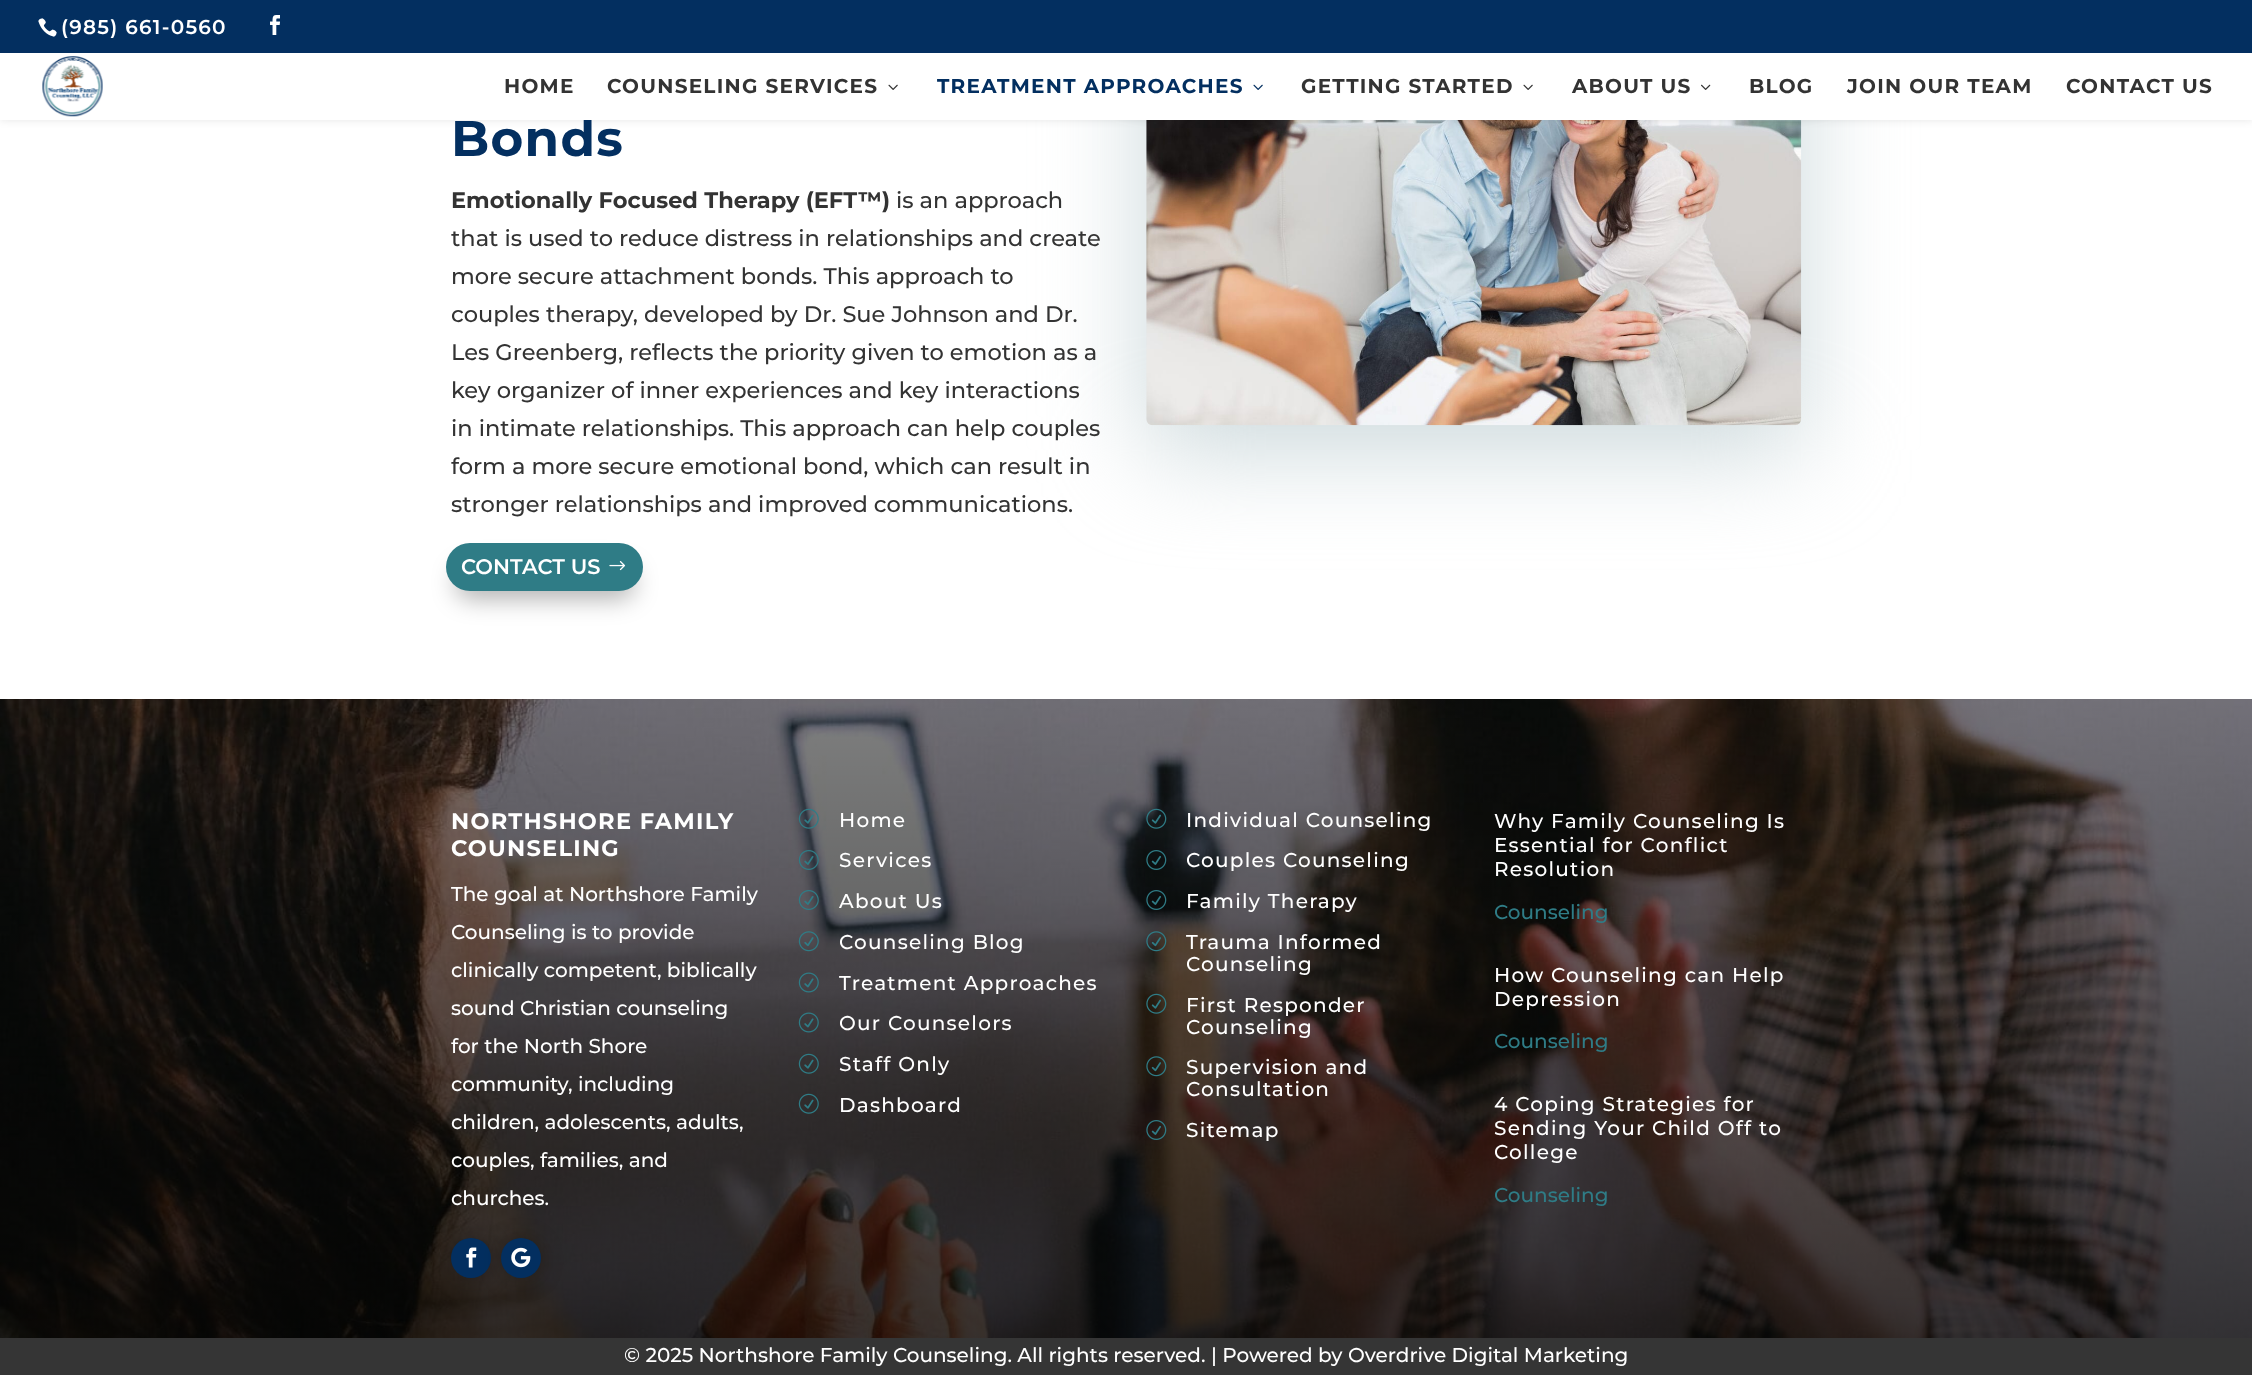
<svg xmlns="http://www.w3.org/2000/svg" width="2252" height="1375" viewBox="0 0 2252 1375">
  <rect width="100%" height="100%" fill="rgb(255,255,255)"/>
  <rect x="1146" y="14" width="655" height="436" rx="6" fill="rgb(203,216,219)" filter="blur(50px)"/>
  <image x="1146" y="120" width="656" height="306" href="pic8.png"/>
  <rect x="0" y="53" width="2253" height="67" fill="rgba(0,0,0,0.1)" filter="blur(4.5px)"/>
  <rect x="0" y="0" width="2252" height="53" fill="rgb(3,47,96)"/>
  <image x="38" y="18" width="19" height="19" href="pic1.png"/>
  <text x="61" y="34" font-family="'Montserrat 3'" font-size="20" font-weight="100" letter-spacing="1.25" fill="rgb(255,255,255)">(985) 661-0560</text>
  <image x="270" y="15" width="10" height="20" href="pic2.png"/>
  <text x="451" y="156" font-family="Montserrat" font-size="50" font-weight="100" letter-spacing="1.25" fill="rgb(3,47,96)">Bonds</text>
  <rect x="0" y="53" width="2252" height="67" fill="rgb(255,255,255)"/>
  <image x="42" y="56" width="61" height="61" href="pic3.png"/>
  <g font-family="Montserrat" font-size="20" font-weight="100" letter-spacing="1.25" fill="rgb(51,51,51)">
    <text x="504" y="93">HOME</text>
    <text x="607" y="93">COUNSELING SERVICES</text>
  </g>
  <image x="888" y="84" width="10" height="6" href="pic4.png"/>
  <text x="937" y="93" font-family="Montserrat" font-size="20" font-weight="100" letter-spacing="1.25" fill="rgb(3,47,96)">TREATMENT APPROACHES</text>
  <image x="1253" y="84" width="10" height="6" href="pic5.png"/>
  <text x="1301" y="93" font-family="Montserrat" font-size="20" font-weight="100" letter-spacing="1.25" fill="rgb(51,51,51)">GETTING STARTED</text>
  <image x="1523" y="84" width="10" height="6" href="pic4.png"/>
  <text x="1572" y="93" font-family="Montserrat" font-size="20" font-weight="100" letter-spacing="1.25" fill="rgb(51,51,51)">ABOUT US</text>
  <image x="1701" y="84" width="10" height="6" href="pic6.png"/>
  <g font-family="Montserrat" font-size="20" font-weight="100" letter-spacing="1.25" fill="rgb(51,51,51)">
    <text x="1749" y="93">BLOG</text>
    <text x="1847" y="93">JOIN OUR TEAM</text>
    <text x="2066" y="93">CONTACT US</text>
  </g>
  <text x="451" y="208" font-family="Montserrat" font-size="22.5" font-weight="100" fill="rgb(51,51,51)">Emotionally Focused Therapy (EFT™)</text>
  <g font-family="'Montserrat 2'" font-size="22.5" font-weight="100" fill="rgb(51,51,51)">
    <text x="896" y="208">is an approach</text>
    <text>
      <tspan x="451" y="246">that is used to reduce distress in relationships and create</tspan>
      <tspan x="451" y="284">more secure attachment bonds. This approach to</tspan>
      <tspan x="451" y="322">couples therapy, developed by Dr. Sue Johnson and Dr.</tspan>
      <tspan x="451" y="360">Les Greenberg, reflects the priority given to emotion as a</tspan>
      <tspan x="451" y="398">key organizer of inner experiences and key interactions</tspan>
      <tspan x="451" y="436">in intimate relationships. This approach can help couples</tspan>
      <tspan x="451" y="474">form a more secure emotional bond, which can result in</tspan>
      <tspan x="451" y="512">stronger relationships and improved communications.</tspan>
    </text>
  </g>
  <rect x="455" y="566" width="180" height="33" rx="16.5" fill="rgba(0,0,0,0.3)" filter="blur(12px)"/>
  <rect x="446" y="543" width="197" height="48" rx="24" fill="rgb(47,124,134)"/>
  <text x="461" y="574" font-family="'Montserrat 3'" font-size="21" font-weight="100" fill="rgb(255,255,255)">CONTACT US</text>
  <image x="609" y="561" width="17" height="10" href="pic7.png"/>
  <image x="0" y="699" width="2252" height="639" href="pic9.png"/>
  <g font-family="Montserrat" font-size="22.5" font-weight="100" letter-spacing="1.25" fill="rgb(255,255,255)">
    <text>
      <tspan x="451" y="829">NORTHSHORE FAMILY</tspan>
      <tspan x="451" y="856">COUNSELING</tspan>
    </text>
  </g>
  <g font-family="'Montserrat 2'" font-size="20" font-weight="100" fill="rgb(255,255,255)">
    <text>
      <tspan x="451" y="901">The goal at Northshore Family</tspan>
      <tspan x="451" y="939">Counseling is to provide</tspan>
      <tspan x="451" y="977">clinically competent, biblically</tspan>
      <tspan x="451" y="1015">sound Christian counseling</tspan>
      <tspan x="451" y="1053">for the North Shore</tspan>
      <tspan x="451" y="1091">community, including</tspan>
      <tspan x="451" y="1129">children, adolescents, adults,</tspan>
      <tspan x="451" y="1167">couples, families, and</tspan>
      <tspan x="451" y="1205">churches.</tspan>
    </text>
  </g>
  <rect x="451" y="1240" width="40" height="40" rx="20" fill="rgba(0,0,0,0.3)" filter="blur(11px)"/>
  <circle cx="471" cy="1258" r="20" fill="rgb(3,47,96)"/>
  <rect x="501" y="1240" width="40" height="40" rx="20" fill="rgba(0,0,0,0.3)" filter="blur(11px)"/>
  <image x="466" y="1247" width="11" height="21" href="pic10.png"/>
  <circle cx="521" cy="1258" r="20" fill="rgb(3,47,96)"/>
  <image x="511" y="1247" width="20" height="21" href="pic11.png"/>
  <image x="798" y="808" width="21" height="21" href="pic12.png"/>
  <text x="839" y="827" font-family="'Montserrat 2'" font-size="20" font-weight="100" letter-spacing="1.25" fill="rgb(255,255,255)">Home</text>
  <image x="798" y="850" width="21" height="20" href="pic13.png"/>
  <text x="839" y="867" font-family="'Montserrat 2'" font-size="20" font-weight="100" letter-spacing="1.25" fill="rgb(255,255,255)">Services</text>
  <image x="798" y="890" width="21" height="20" href="pic14.png"/>
  <text x="839" y="908" font-family="'Montserrat 2'" font-size="20" font-weight="100" letter-spacing="1.25" fill="rgb(255,255,255)">About Us</text>
  <image x="798" y="931" width="21" height="21" href="pic15.png"/>
  <text x="839" y="949" font-family="'Montserrat 2'" font-size="20" font-weight="100" letter-spacing="1.25" fill="rgb(255,255,255)">Counseling Blog</text>
  <image x="798" y="972" width="21" height="21" href="pic16.png"/>
  <text x="839" y="990" font-family="'Montserrat 2'" font-size="20" font-weight="100" letter-spacing="1.25" fill="rgb(255,255,255)">Treatment Approaches</text>
  <image x="798" y="1012" width="21" height="21" href="pic17.png"/>
  <text x="839" y="1030" font-family="'Montserrat 2'" font-size="20" font-weight="100" letter-spacing="1.25" fill="rgb(255,255,255)">Our Counselors</text>
  <image x="798" y="1053" width="21" height="21" href="pic18.png"/>
  <text x="839" y="1071" font-family="'Montserrat 2'" font-size="20" font-weight="100" letter-spacing="1.25" fill="rgb(255,255,255)">Staff Only</text>
  <image x="798" y="1093" width="21" height="21" href="pic19.png"/>
  <text x="839" y="1112" font-family="'Montserrat 2'" font-size="20" font-weight="100" letter-spacing="1.25" fill="rgb(255,255,255)">Dashboard</text>
  <image x="1146" y="808" width="21" height="21" href="pic20.png"/>
  <text x="1186" y="827" font-family="'Montserrat 2'" font-size="20" font-weight="100" letter-spacing="1.25" fill="rgb(255,255,255)">Individual Counseling</text>
  <image x="1146" y="850" width="21" height="20" href="pic21.png"/>
  <text x="1186" y="867" font-family="'Montserrat 2'" font-size="20" font-weight="100" letter-spacing="1.25" fill="rgb(255,255,255)">Couples Counseling</text>
  <image x="1146" y="890" width="21" height="20" href="pic22.png"/>
  <text x="1186" y="908" font-family="'Montserrat 2'" font-size="20" font-weight="100" letter-spacing="1.25" fill="rgb(255,255,255)">Family Therapy</text>
  <image x="1146" y="931" width="21" height="21" href="pic23.png"/>
  <g font-family="'Montserrat 2'" font-size="20" font-weight="100" letter-spacing="1.25" fill="rgb(255,255,255)">
    <text>
      <tspan x="1186" y="949">Trauma Informed</tspan>
      <tspan x="1186" y="971">Counseling</tspan>
    </text>
  </g>
  <image x="1146" y="993" width="21" height="21" href="pic24.png"/>
  <g font-family="'Montserrat 2'" font-size="20" font-weight="100" letter-spacing="1.25" fill="rgb(255,255,255)">
    <text>
      <tspan x="1186" y="1012">First Responder</tspan>
      <tspan x="1186" y="1034">Counseling</tspan>
    </text>
  </g>
  <image x="1146" y="1056" width="21" height="21" href="pic25.png"/>
  <g font-family="'Montserrat 2'" font-size="20" font-weight="100" letter-spacing="1.25" fill="rgb(255,255,255)">
    <text>
      <tspan x="1186" y="1074">Supervision and</tspan>
      <tspan x="1186" y="1096">Consultation</tspan>
    </text>
  </g>
  <image x="1146" y="1120" width="21" height="20" href="pic26.png"/>
  <g font-family="'Montserrat 2'" font-size="20" font-weight="100" letter-spacing="1.25" fill="rgb(255,255,255)">
    <text x="1186" y="1137">Sitemap</text>
    <text>
      <tspan x="1494" y="828">Why Family Counseling Is</tspan>
      <tspan x="1494" y="852">Essential for Conflict</tspan>
      <tspan x="1494" y="876">Resolution</tspan>
    </text>
  </g>
  <text x="1494" y="919" font-family="'Montserrat 2'" font-size="20" font-weight="100" fill="rgb(47,124,134)">Counseling</text>
  <g font-family="'Montserrat 2'" font-size="20" font-weight="100" letter-spacing="1.25" fill="rgb(255,255,255)">
    <text>
      <tspan x="1494" y="982">How Counseling can Help</tspan>
      <tspan x="1494" y="1006">Depression</tspan>
    </text>
  </g>
  <text x="1494" y="1048" font-family="'Montserrat 2'" font-size="20" font-weight="100" fill="rgb(47,124,134)">Counseling</text>
  <g font-family="'Montserrat 2'" font-size="20" font-weight="100" letter-spacing="1.25" fill="rgb(255,255,255)">
    <text>
      <tspan x="1494" y="1111">4 Coping Strategies for</tspan>
      <tspan x="1494" y="1135">Sending Your Child Off to</tspan>
      <tspan x="1494" y="1159">College</tspan>
    </text>
  </g>
  <text x="1494" y="1202" font-family="'Montserrat 2'" font-size="20" font-weight="100" fill="rgb(47,124,134)">Counseling</text>
  <rect x="0" y="1338" width="2252" height="37" fill="rgb(53,53,53)"/>
  <text x="624" y="1362" font-family="'Montserrat 2'" font-size="20" font-weight="100" fill="rgb(255,255,255)">© 2025 Northshore Family Counseling. All rights reserved. | Powered by Overdrive Digital Marketing</text>
</svg>
